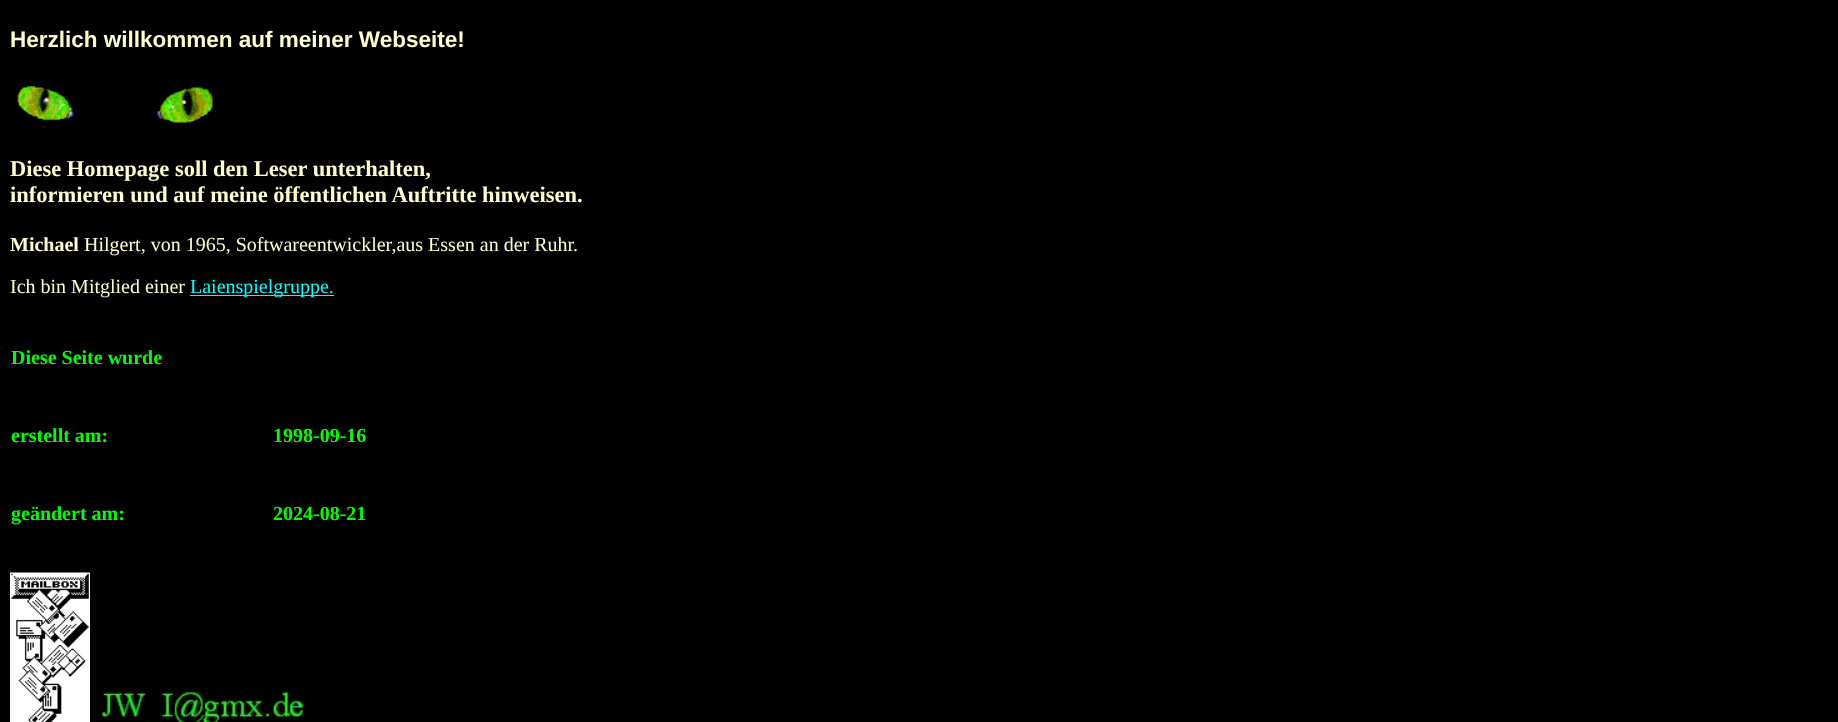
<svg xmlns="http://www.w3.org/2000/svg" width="1838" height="722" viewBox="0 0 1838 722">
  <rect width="100%" height="100%" fill="rgb(0,0,0)"/>
  <text x="10" y="47" font-family="Liberation Sans" font-size="22.5" font-weight="bold" fill="rgb(255,255,204)">Herzlich willkommen auf meiner Webseite!</text>
  <image x="17" y="86" width="196" height="42" href="pic1.png"/>
  <g font-family="Liberation Serif" font-size="22.5" font-weight="bold" fill="rgb(255,255,204)">
    <text>
      <tspan x="10" y="176">Diese Homepage soll den Leser unterhalten,</tspan>
      <tspan x="10" y="202">informieren und auf meine öffentlichen Auftritte hinweisen.</tspan>
    </text>
  </g>
  <text x="10" y="251" font-family="Liberation Serif" font-size="20" font-weight="bold" fill="rgb(255,255,204)">Michael</text>
  <g font-family="Liberation Serif" font-size="20" fill="rgb(255,255,204)">
    <text x="84" y="251">Hilgert, von 1965, Softwareentwickler,aus Essen an der Ruhr.</text>
    <text x="10" y="293">Ich bin Mitglied einer</text>
  </g>
  <rect x="190" y="295" width="144" height="1" fill="rgb(0,255,255)"/>
  <text x="190" y="293" font-family="Liberation Serif" font-size="20" fill="rgb(0,255,255)">Laienspielgruppe.</text>
  <g font-family="Liberation Serif" font-size="20" font-weight="bold" fill="rgb(0,255,0)">
    <text x="11" y="364">Diese Seite wurde</text>
    <text x="11" y="442">erstellt am:</text>
    <text x="273" y="442">1998-09-16</text>
    <text x="11" y="520">geändert am:</text>
    <text x="273" y="520">2024-08-21</text>
  </g>
  <image x="10" y="572" width="80" height="150" href="pic2.png"/>
  <image x="101" y="691" width="203" height="31" href="pic3.png"/>
</svg>
